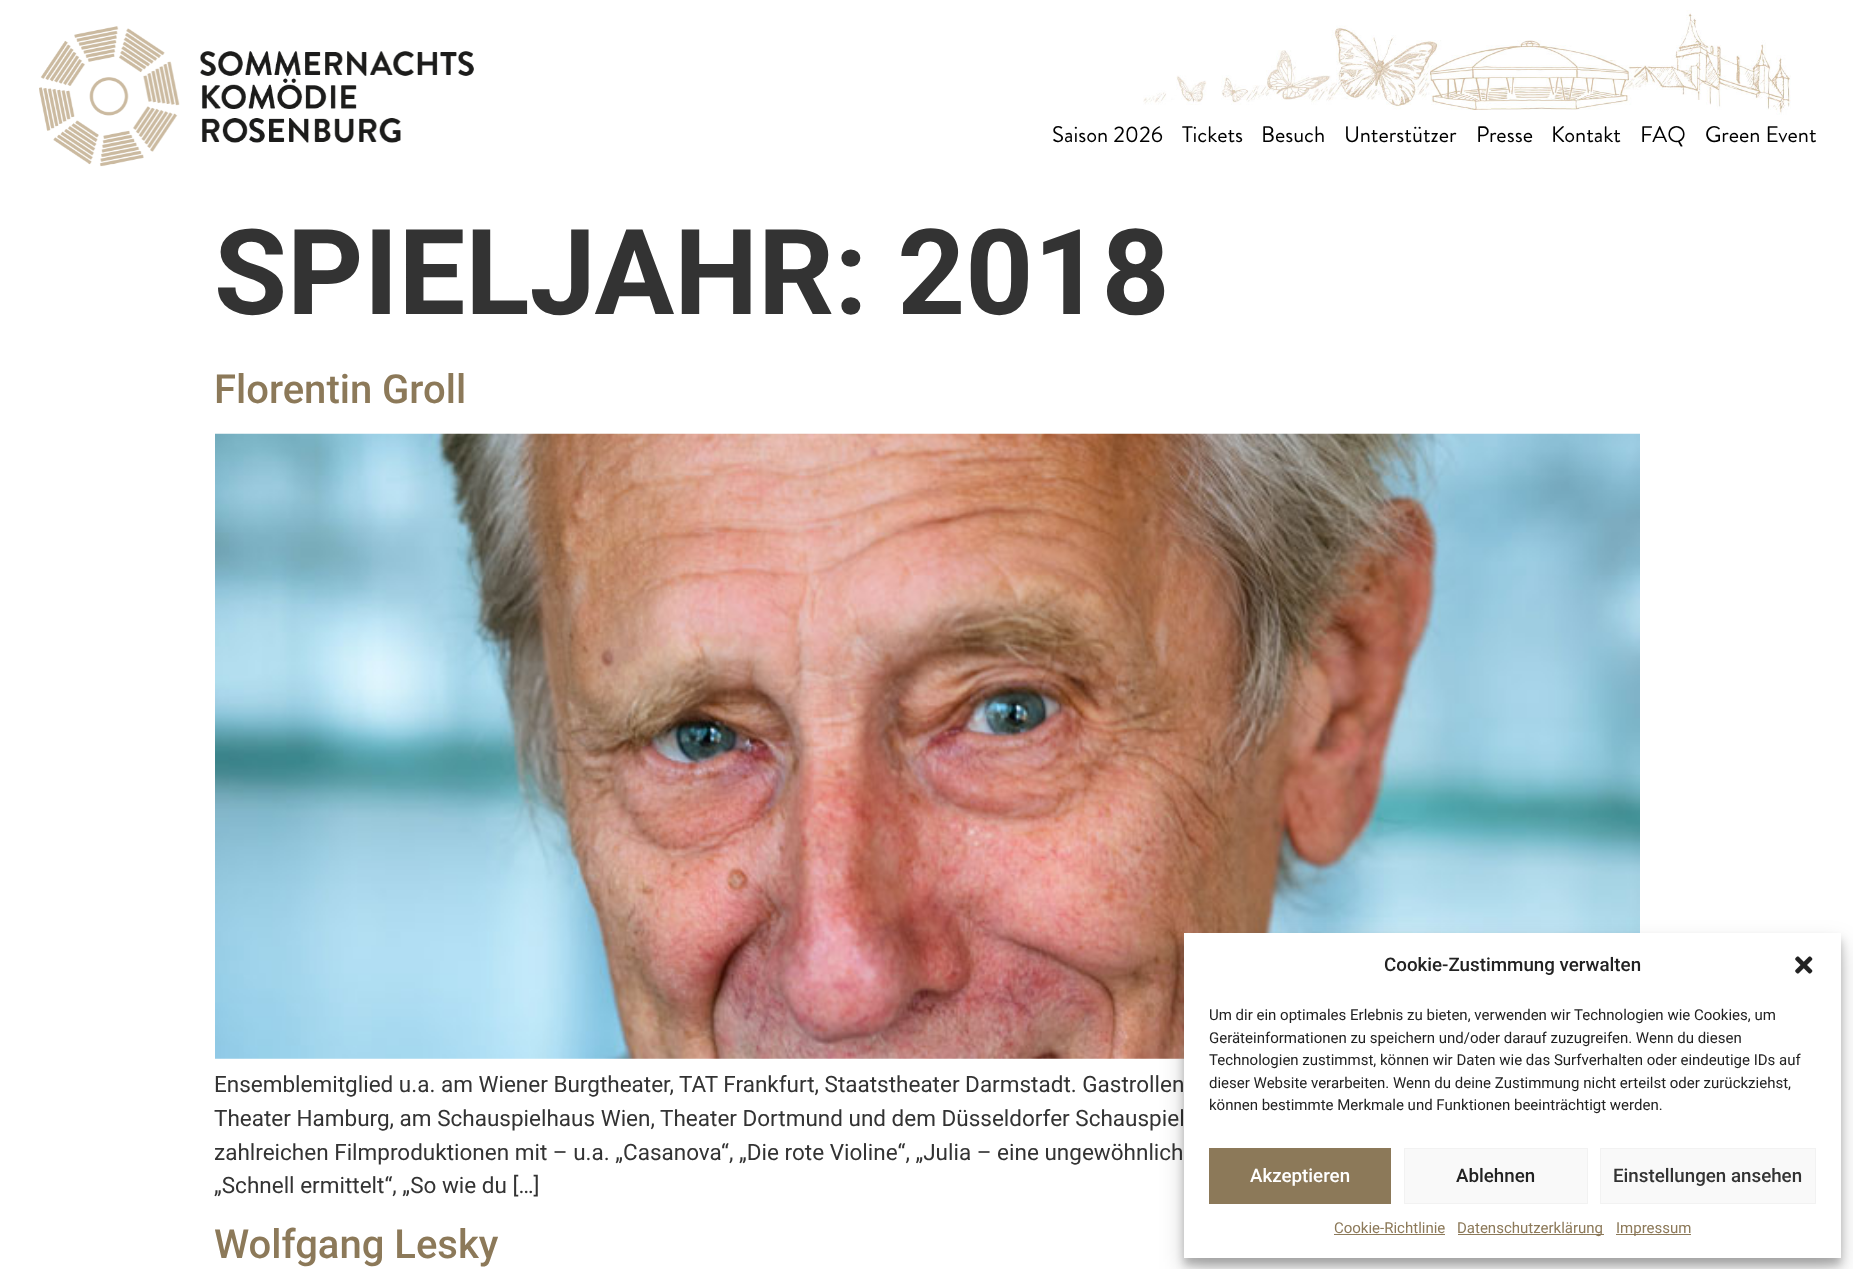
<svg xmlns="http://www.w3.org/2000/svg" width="1853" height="1269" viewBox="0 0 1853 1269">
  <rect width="100%" height="100%" fill="rgb(255,255,255)"/>
  <image x="1143" y="10" width="648" height="105" href="pic1.png"/>
  <image x="39" y="26" width="435" height="141" href="pic2.png"/>
  <g font-family="Brandon Grotesque" font-size="22.5" fill="rgb(0,0,0)">
    <text x="1052" y="142">Saison 2026</text>
    <text x="1182" y="142">Tickets</text>
    <text x="1261" y="142">Besuch</text>
    <text x="1344" y="142">Unterstützer</text>
    <text x="1476" y="142">Presse</text>
    <text x="1551" y="142">Kontakt</text>
    <text x="1640" y="142">FAQ</text>
    <text x="1705" y="142">Green Event</text>
  </g>
  <text x="214" y="314" font-family="Roboto" font-size="118.75" font-weight="bold" fill="rgb(51,51,51)">SPIELJAHR: 2018</text>
  <text x="214" y="403" font-family="Roboto" font-size="40" font-weight="500" fill="rgb(140,121,89)">Florentin Groll</text>
  <image x="215" y="433" width="1425" height="626" href="pic3.png"/>
  <g font-family="Roboto" font-size="22.5" fill="rgb(51,51,51)">
    <text>
      <tspan x="214" y="1092">Ensemblemitglied u.a. am Wiener Burgtheater, TAT Frankfurt, Staatstheater Darmstadt. Gastrollen</tspan>
      <tspan x="214" y="1126">Theater Hamburg, am Schauspielhaus Wien, Theater Dortmund und dem Düsseldorfer Schauspiel</tspan>
      <tspan x="214" y="1160">zahlreichen Filmproduktionen mit – u.a. „Casanova“, „Die rote Violine“, „Julia – eine ungewöhnlich</tspan>
      <tspan x="214" y="1193">„Schnell ermittelt“, „So wie du […]</tspan>
    </text>
  </g>
  <text x="214" y="1258" font-family="Roboto" font-size="40" font-weight="500" fill="rgb(140,121,89)">Wolfgang Lesky</text>
  <rect x="1184" y="940" width="657" height="325" fill="rgba(0,0,0,0.23)" filter="blur(4px)"/>
  <rect x="1184" y="945" width="657" height="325" fill="rgba(0,0,0,0.19)" filter="blur(12.5px)"/>
  <rect x="1184" y="933" width="657" height="325" fill="rgb(255,255,255)"/>
  <text x="1384" y="971" font-family="Roboto" font-size="18.75" font-weight="500" fill="rgb(34,34,34)">Cookie-Zustimmung verwalten</text>
  <image x="1795" y="956" width="18" height="18" href="pic4.png"/>
  <g font-family="Roboto" font-size="15" fill="rgb(34,34,34)">
    <text>
      <tspan x="1209" y="1020">Um dir ein optimales Erlebnis zu bieten, verwenden wir Technologien wie Cookies, um</tspan>
      <tspan x="1209" y="1043">Geräteinformationen zu speichern und/oder darauf zuzugreifen. Wenn du diesen</tspan>
      <tspan x="1209" y="1065">Technologien zustimmst, können wir Daten wie das Surfverhalten oder eindeutige IDs auf</tspan>
      <tspan x="1209" y="1088">dieser Website verarbeiten. Wenn du deine Zustimmung nicht erteilst oder zurückziehst,</tspan>
      <tspan x="1209" y="1110">können bestimmte Merkmale und Funktionen beeinträchtigt werden.</tspan>
    </text>
  </g>
  <rect x="1209" y="1148" width="182" height="56" fill="rgb(140,121,89)"/>
  <text x="1250" y="1182" font-family="Roboto" font-size="18.75" font-weight="500" fill="rgb(255,255,255)">Akzeptieren</text>
  <rect x="1404.5" y="1148.5" width="183" height="55" fill="rgb(249,249,249)" stroke="rgb(242,242,242)"/>
  <text x="1456" y="1182" font-family="Roboto" font-size="18.75" font-weight="500" fill="rgb(34,34,34)">Ablehnen</text>
  <rect x="1600.5" y="1148.5" width="215" height="55" fill="rgb(249,249,249)" stroke="rgb(242,242,242)"/>
  <text x="1613" y="1182" font-family="Roboto" font-size="18.75" font-weight="500" fill="rgb(51,51,51)">Einstellungen ansehen</text>
  <text x="1334" y="1233" font-family="Roboto" font-size="15" fill="rgb(140,121,89)">Cookie-Richtlinie</text>
  <rect x="1334" y="1234" width="111" height="1" fill="rgb(140,121,89)"/>
  <rect x="1458" y="1234" width="146" height="1" fill="rgb(140,121,89)"/>
  <text x="1457" y="1233" font-family="Roboto" font-size="15" fill="rgb(140,121,89)">Datenschutzerklärung</text>
  <rect x="1616" y="1234" width="75" height="1" fill="rgb(140,121,89)"/>
  <text x="1616" y="1233" font-family="Roboto" font-size="15" fill="rgb(140,121,89)">Impressum</text>
</svg>
